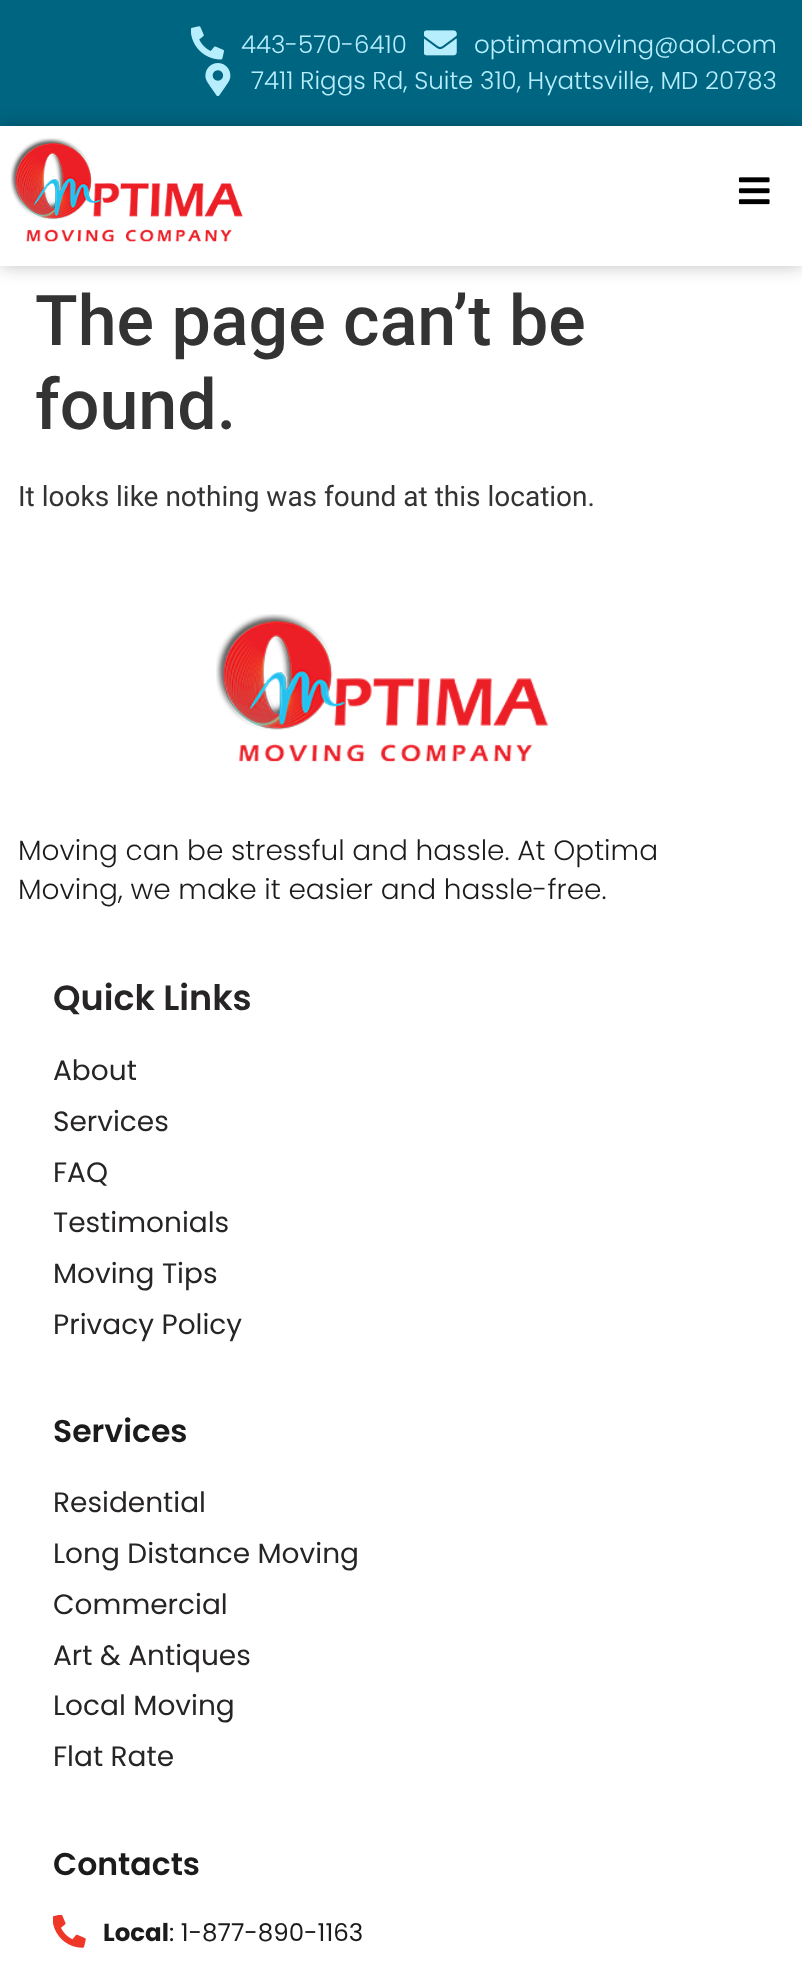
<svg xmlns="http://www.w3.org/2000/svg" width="802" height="1961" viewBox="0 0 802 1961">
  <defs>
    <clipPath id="clip1"><path d="M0 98H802V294H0ZM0 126H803V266H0Z" clip-rule="evenodd"/></clipPath>
  </defs>
  <rect width="100%" height="100%" fill="rgb(255,255,255)"/>
  <rect x="0" y="0" width="802" height="126" fill="rgb(0,101,129)"/>
  <image x="191" y="26" width="33" height="34" href="pic1.png"/>
  <text x="241" y="53" font-family="Poppins" font-size="24.5" font-weight="300" fill="rgb(182,238,253)">443-570-6410</text>
  <image x="424" y="30" width="33" height="26" href="pic2.png"/>
  <text x="474" y="53" font-family="Poppins" font-size="24.5" font-weight="300" fill="rgb(182,238,253)">optimamoving@aol.com</text>
  <image x="205" y="63" width="26" height="33" href="pic3.png"/>
  <text x="251" y="89" font-family="Poppins" font-size="24.5" font-weight="300" fill="rgb(182,238,253)">7411 Riggs Rd, Suite 310, Hyattsville, MD 20783</text>
  <g clip-path="url(#clip1)">
    <rect x="0" y="126" width="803" height="140" fill="rgba(0,0,0,0.25)" filter="blur(9px)"/>
  </g>
  <image x="10" y="138" width="233" height="104" href="pic4.png"/>
  <image x="738" y="177" width="32" height="28" href="pic5.png"/>
  <g font-family="Roboto" font-size="70" font-weight="500" fill="rgb(51,51,51)">
    <text>
      <tspan x="35" y="345">The page can’t be</tspan>
      <tspan x="35" y="429">found.</tspan>
    </text>
  </g>
  <text x="18" y="506" font-family="Roboto" font-size="28" fill="rgb(51,51,51)">It looks like nothing was found at this location.</text>
  <image x="216" y="614" width="333" height="148" href="pic6.png"/>
  <g font-family="Poppins" font-size="28" font-weight="300" fill="rgb(27,27,27)">
    <text>
      <tspan x="18" y="860">Moving can be stressful and hassle. At Optima</tspan>
      <tspan x="18" y="899">Moving, we make it easier and hassle-free.</tspan>
    </text>
  </g>
  <text x="53" y="1010" font-family="Poppins" font-size="35" font-weight="600" fill="rgb(39,36,37)">Quick Links</text>
  <g font-family="Poppins" font-size="28" fill="rgb(39,36,37)">
    <text>
      <tspan x="53" y="1080">About</tspan>
      <tspan x="53" y="1131">Services</tspan>
      <tspan x="53" y="1182">FAQ</tspan>
      <tspan x="53" y="1232">Testimonials</tspan>
      <tspan x="53" y="1283">Moving Tips</tspan>
      <tspan x="53" y="1334">Privacy Policy</tspan>
    </text>
  </g>
  <text x="53" y="1442" font-family="Poppins" font-size="31.5" font-weight="600" fill="rgb(27,27,27)">Services</text>
  <g font-family="Poppins" font-size="28" fill="rgb(39,36,37)">
    <text>
      <tspan x="53" y="1512">Residential</tspan>
      <tspan x="53" y="1563">Long Distance Moving</tspan>
      <tspan x="53" y="1614">Commercial</tspan>
      <tspan x="53" y="1665">Art &amp; Antiques</tspan>
      <tspan x="53" y="1715">Local Moving</tspan>
      <tspan x="53" y="1766">Flat Rate</tspan>
    </text>
  </g>
  <text x="53" y="1875" font-family="Poppins" font-size="31.5" font-weight="600" fill="rgb(27,27,27)">Contacts</text>
  <image x="53" y="1915" width="33" height="33" href="pic7.png"/>
  <text x="103" y="1941" font-family="Poppins" font-size="24.5" font-weight="bold" fill="rgb(27,27,27)">Local</text>
  <text x="169" y="1941" font-family="Poppins" font-size="24.5" fill="rgb(27,27,27)">: 1-877-890-1163</text>
</svg>
